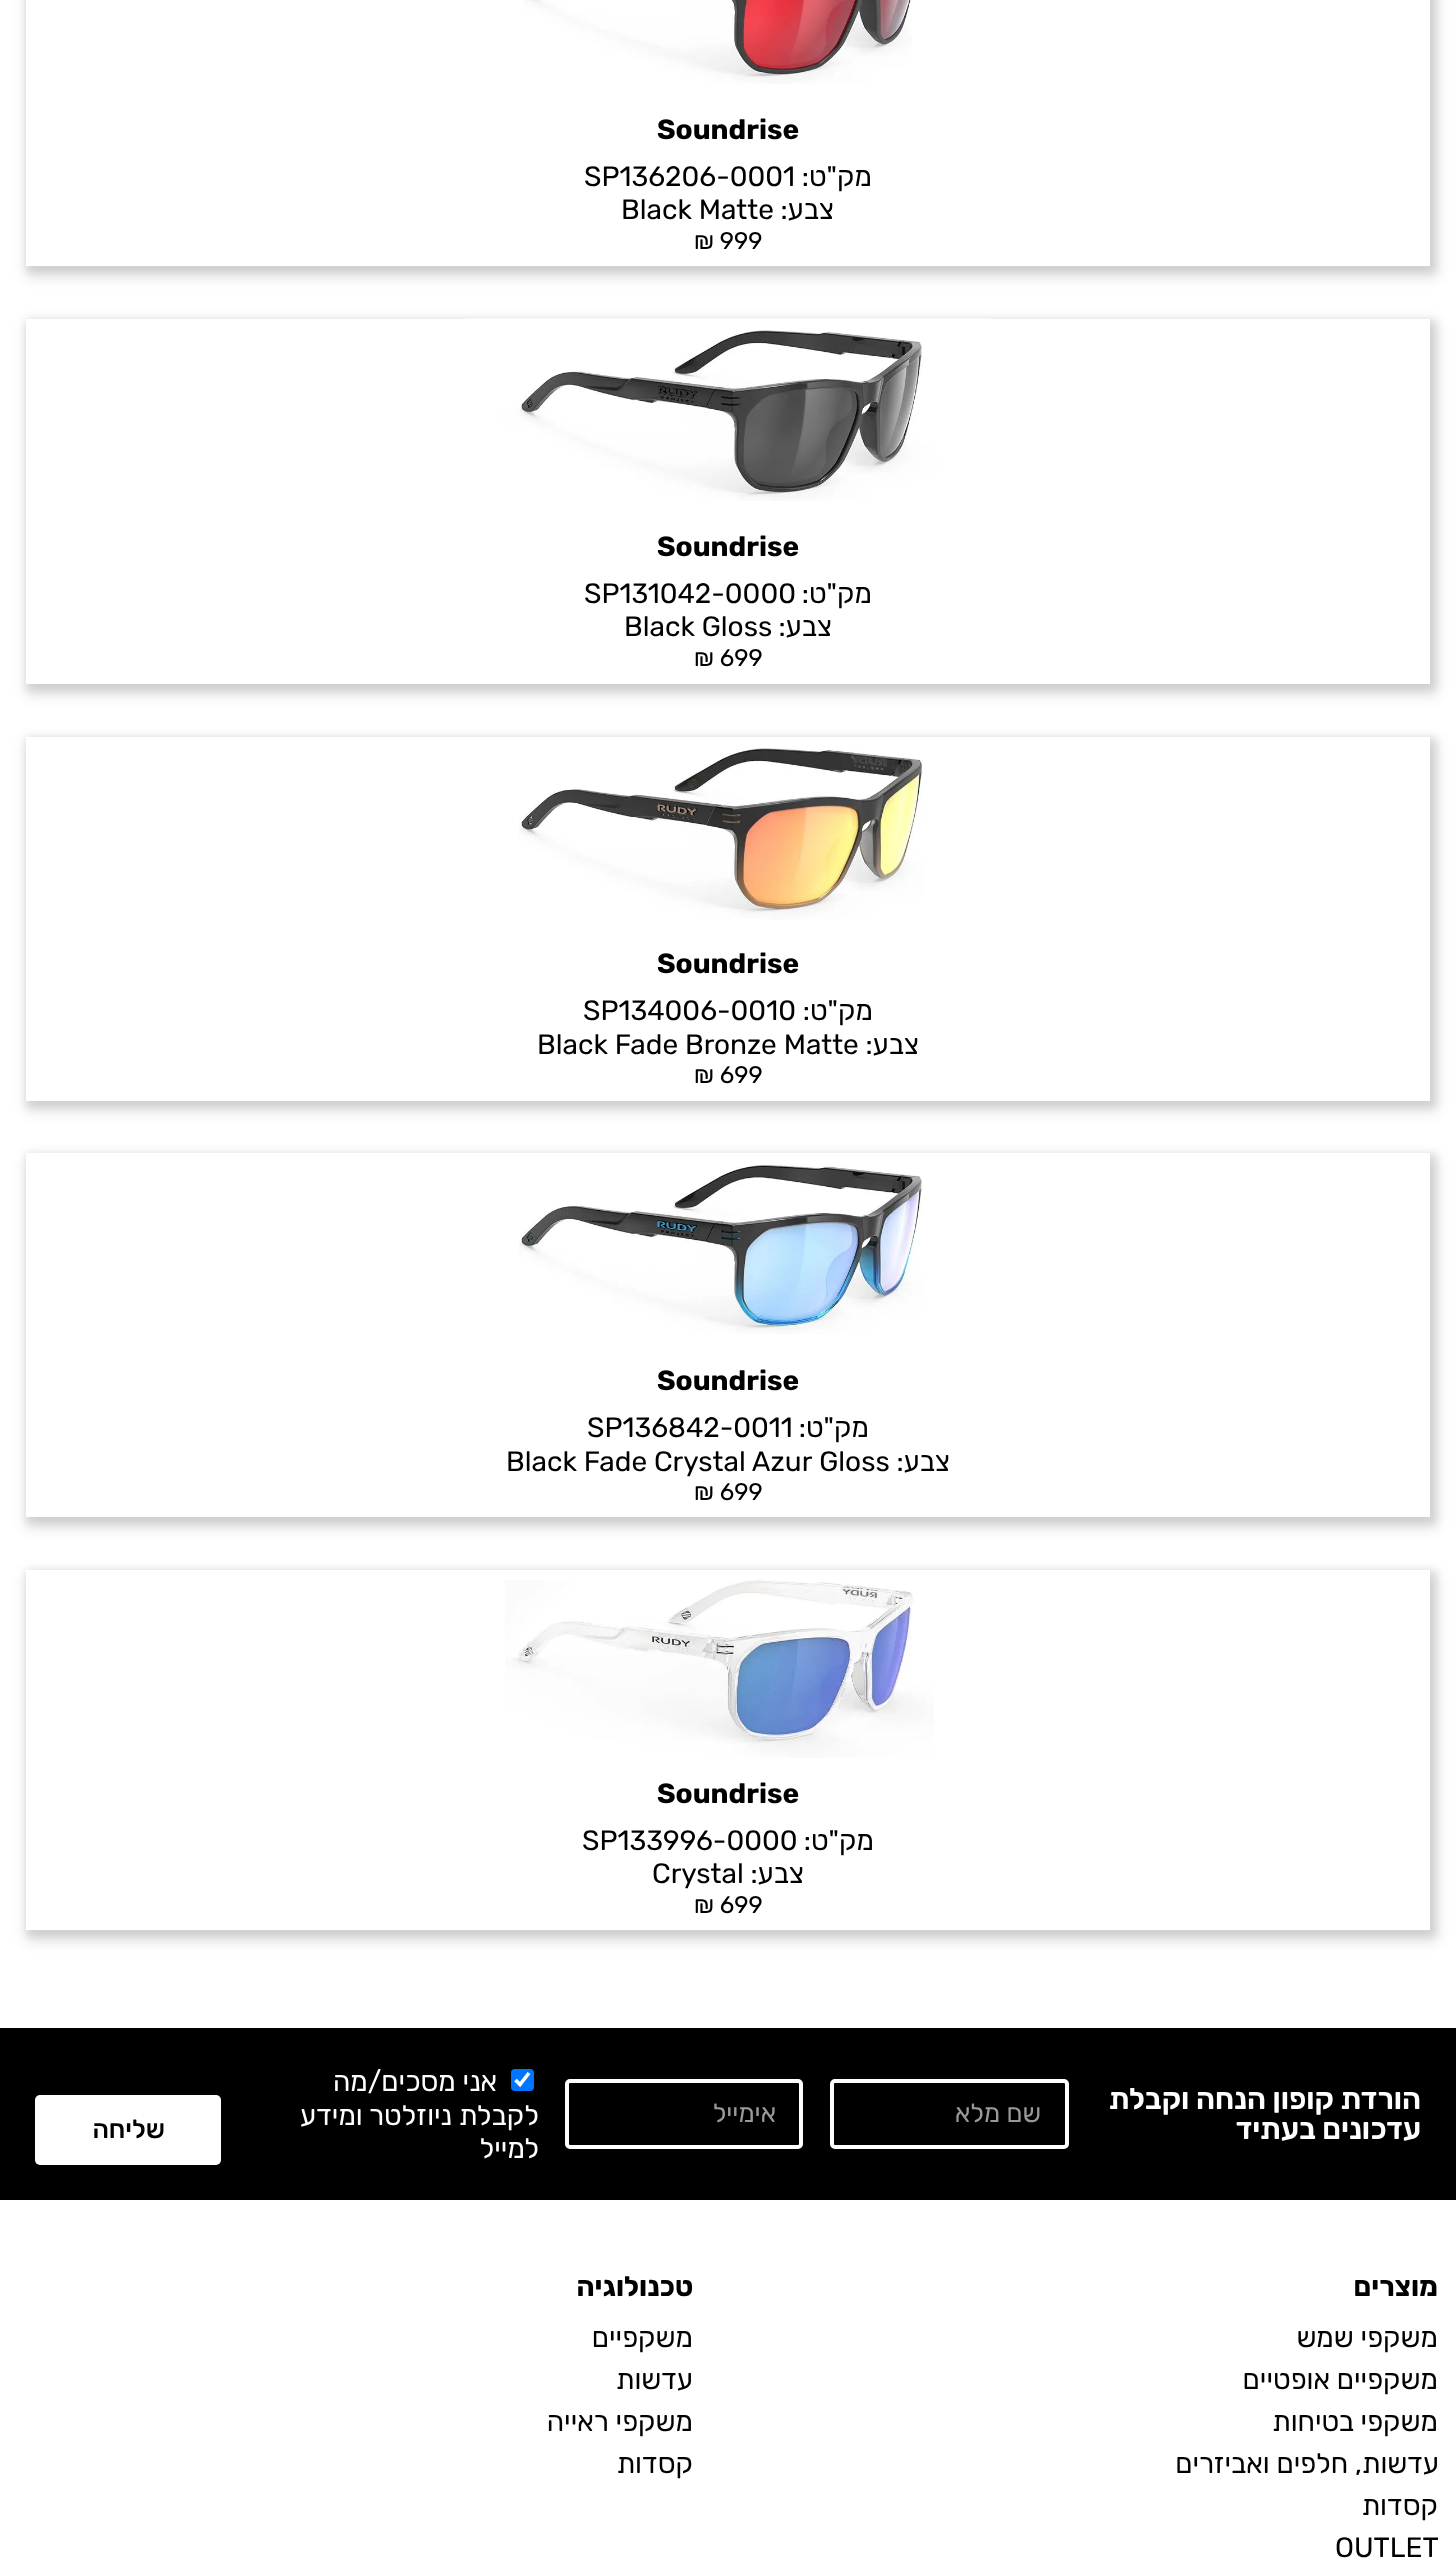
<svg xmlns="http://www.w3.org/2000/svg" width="1456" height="2566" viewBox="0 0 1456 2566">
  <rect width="100%" height="100%" fill="rgb(255,255,255)"/>
  <rect x="26" y="-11" width="1411" height="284" fill="rgba(0,0,0,0.08)" filter="blur(3.5px)"/>
  <rect x="26" y="-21" width="1411" height="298" fill="rgba(0,0,0,0.12)" filter="blur(7px)"/>
  <rect x="26" y="0" width="1404" height="266" fill="rgb(255,255,255)"/>
  <image x="524" y="0" width="388" height="84" href="pic1.png"/>
  <text x="657" y="139" font-family="Rubik" font-size="28" font-weight="bold" fill="rgb(0,0,0)">Soundrise</text>
  <text x="872" y="186" font-family="Rubik" font-size="28" direction="rtl" fill="rgb(0,0,0)">מק"ט:</text>
  <text x="584" y="186" font-family="Rubik" font-size="28" fill="rgb(0,0,0)">SP136206-0001</text>
  <text x="834" y="219" font-family="Rubik" font-size="28" direction="rtl" fill="rgb(0,0,0)">צבע:</text>
  <text x="621" y="219" font-family="Rubik" font-size="28" fill="rgb(0,0,0)">Black Matte</text>
  <text x="694" y="249" font-family="Rubik" font-size="24" fill="rgb(0,0,0)">₪ 999</text>
  <rect x="26" y="319" width="1411" height="372" fill="rgba(0,0,0,0.08)" filter="blur(3.5px)"/>
  <rect x="26" y="322" width="1411" height="373" fill="rgba(0,0,0,0.12)" filter="blur(7px)"/>
  <rect x="26" y="319" width="1404" height="365" fill="rgb(255,255,255)"/>
  <image x="466" y="318" width="524" height="183" href="pic2.png"/>
  <text x="657" y="556" font-family="Rubik" font-size="28" font-weight="bold" fill="rgb(0,0,0)">Soundrise</text>
  <text x="872" y="603" font-family="Rubik" font-size="28" direction="rtl" fill="rgb(0,0,0)">מק"ט:</text>
  <text x="584" y="603" font-family="Rubik" font-size="28" fill="rgb(0,0,0)">SP131042-0000</text>
  <text x="832" y="636" font-family="Rubik" font-size="28" direction="rtl" fill="rgb(0,0,0)">צבע:</text>
  <text x="624" y="636" font-family="Rubik" font-size="28" fill="rgb(0,0,0)">Black Gloss</text>
  <text x="694" y="666" font-family="Rubik" font-size="24" fill="rgb(0,0,0)">₪ 699</text>
  <rect x="26" y="737" width="1411" height="371" fill="rgba(0,0,0,0.08)" filter="blur(3.5px)"/>
  <rect x="26" y="740" width="1411" height="371" fill="rgba(0,0,0,0.12)" filter="blur(7px)"/>
  <rect x="26" y="737" width="1404" height="364" fill="rgb(255,255,255)"/>
  <image x="519" y="748" width="404" height="172" href="pic3.png"/>
  <text x="657" y="973" font-family="Rubik" font-size="28" font-weight="bold" fill="rgb(0,0,0)">Soundrise</text>
  <text x="873" y="1020" font-family="Rubik" font-size="28" direction="rtl" fill="rgb(0,0,0)">מק"ט:</text>
  <text x="583" y="1020" font-family="Rubik" font-size="28" fill="rgb(0,0,0)">SP134006-0010</text>
  <text x="919" y="1054" font-family="Rubik" font-size="28" direction="rtl" fill="rgb(0,0,0)">צבע:</text>
  <text x="537" y="1054" font-family="Rubik" font-size="28" fill="rgb(0,0,0)">Black Fade Bronze Matte</text>
  <text x="694" y="1083" font-family="Rubik" font-size="24" fill="rgb(0,0,0)">₪ 699</text>
  <rect x="26" y="1153" width="1411" height="371" fill="rgba(0,0,0,0.08)" filter="blur(3.5px)"/>
  <rect x="26" y="1157" width="1411" height="371" fill="rgba(0,0,0,0.12)" filter="blur(7px)"/>
  <rect x="26" y="1153" width="1404" height="364" fill="rgb(255,255,255)"/>
  <image x="519" y="1164" width="404" height="170" href="pic4.png"/>
  <text x="657" y="1390" font-family="Rubik" font-size="28" font-weight="bold" fill="rgb(0,0,0)">Soundrise</text>
  <text x="869" y="1437" font-family="Rubik" font-size="28" direction="rtl" fill="rgb(0,0,0)">מק"ט:</text>
  <text x="587" y="1437" font-family="Rubik" font-size="28" fill="rgb(0,0,0)">SP136842-0011</text>
  <text x="950" y="1471" font-family="Rubik" font-size="28" direction="rtl" fill="rgb(0,0,0)">צבע:</text>
  <text x="506" y="1471" font-family="Rubik" font-size="28" fill="rgb(0,0,0)">Black Fade Crystal Azur Gloss</text>
  <text x="694" y="1500" font-family="Rubik" font-size="24" fill="rgb(0,0,0)">₪ 699</text>
  <rect x="26" y="1570" width="1411" height="367" fill="rgba(0,0,0,0.08)" filter="blur(3.5px)"/>
  <rect x="26" y="1573" width="1411" height="368" fill="rgba(0,0,0,0.12)" filter="blur(7px)"/>
  <rect x="26" y="1570" width="1404" height="360" fill="rgb(255,255,255)"/>
  <image x="505" y="1580" width="429" height="178" href="pic5.png"/>
  <text x="657" y="1803" font-family="Rubik" font-size="28" font-weight="bold" fill="rgb(0,0,0)">Soundrise</text>
  <text x="874" y="1850" font-family="Rubik" font-size="28" direction="rtl" fill="rgb(0,0,0)">מק"ט:</text>
  <text x="582" y="1850" font-family="Rubik" font-size="28" fill="rgb(0,0,0)">SP133996-0000</text>
  <text x="804" y="1883" font-family="Rubik" font-size="28" direction="rtl" fill="rgb(0,0,0)">צבע:</text>
  <text x="652" y="1883" font-family="Rubik" font-size="28" fill="rgb(0,0,0)">Crystal</text>
  <text x="694" y="1913" font-family="Rubik" font-size="24" fill="rgb(0,0,0)">₪ 699</text>
  <rect x="0" y="2028" width="1456" height="172" fill="rgb(0,0,0)"/>
  <g font-family="Rubik" font-size="29.75" font-weight="600" direction="rtl" fill="rgb(255,255,255)">
    <text>
      <tspan x="1421" y="2109">הורדת קופון הנחה וקבלת</tspan>
      <tspan x="1421" y="2139">עדכונים בעתיד</tspan>
    </text>
  </g>
  <rect x="832" y="2081" width="235" height="66" rx="3" fill="none" stroke="rgb(255,255,255)" stroke-width="4"/>
  <text x="1041" y="2122" font-family="Rubik" font-size="26" direction="rtl" fill="rgb(153,153,153)">שם מלא</text>
  <rect x="567" y="2081" width="234" height="66" rx="3" fill="none" stroke="rgb(255,255,255)" stroke-width="4"/>
  <text x="776" y="2122" font-family="Rubik" font-size="26" direction="rtl" fill="rgb(153,153,153)">אימייל</text>
  <rect x="511" y="2069" width="23" height="22" rx="4" fill="rgb(0,117,255)"/>
  <path d="M515.5 2080L520 2084.5L529 2073" fill="none" stroke="rgb(255,255,255)" stroke-width="3.6"/>
  <g font-family="Rubik" font-size="28" direction="rtl" fill="rgb(255,255,255)">
    <text x="497" y="2091">אני מסכים/מה</text>
    <text>
      <tspan x="539" y="2125">לקבלת ניוזלטר ומידע</tspan>
      <tspan x="539" y="2158">למייל</tspan>
    </text>
  </g>
  <rect x="35" y="2095" width="186" height="70" rx="5" fill="rgb(255,255,255)"/>
  <text x="165" y="2138" font-family="Rubik" font-size="26" font-weight="500" direction="rtl" fill="rgb(0,0,0)">שליחה</text>
  <text x="1438" y="2296" font-family="Rubik" font-size="28" font-weight="bold" direction="rtl" fill="rgb(0,0,0)">מוצרים</text>
  <g font-family="Rubik" font-size="28" direction="rtl" fill="rgb(0,0,0)">
    <text>
      <tspan x="1438" y="2347">משקפי שמש</tspan>
      <tspan x="1438" y="2389">משקפיים אופטיים</tspan>
      <tspan x="1438" y="2431">משקפי בטיחות</tspan>
    </text>
    <text x="1439" y="2473">עדשות, חלפים ואביזרים</text>
    <text x="1438" y="2515">קסדות</text>
  </g>
  <text x="1335" y="2557" font-family="Rubik" font-size="28" fill="rgb(0,0,0)">OUTLET</text>
  <text x="693" y="2296" font-family="Rubik" font-size="28" font-weight="bold" direction="rtl" fill="rgb(0,0,0)">טכנולוגיה</text>
  <g font-family="Rubik" font-size="28" direction="rtl" fill="rgb(0,0,0)">
    <text>
      <tspan x="693" y="2347">משקפיים</tspan>
      <tspan x="693" y="2389">עדשות</tspan>
      <tspan x="693" y="2431">משקפי ראייה</tspan>
      <tspan x="693" y="2473">קסדות</tspan>
    </text>
  </g>
</svg>
